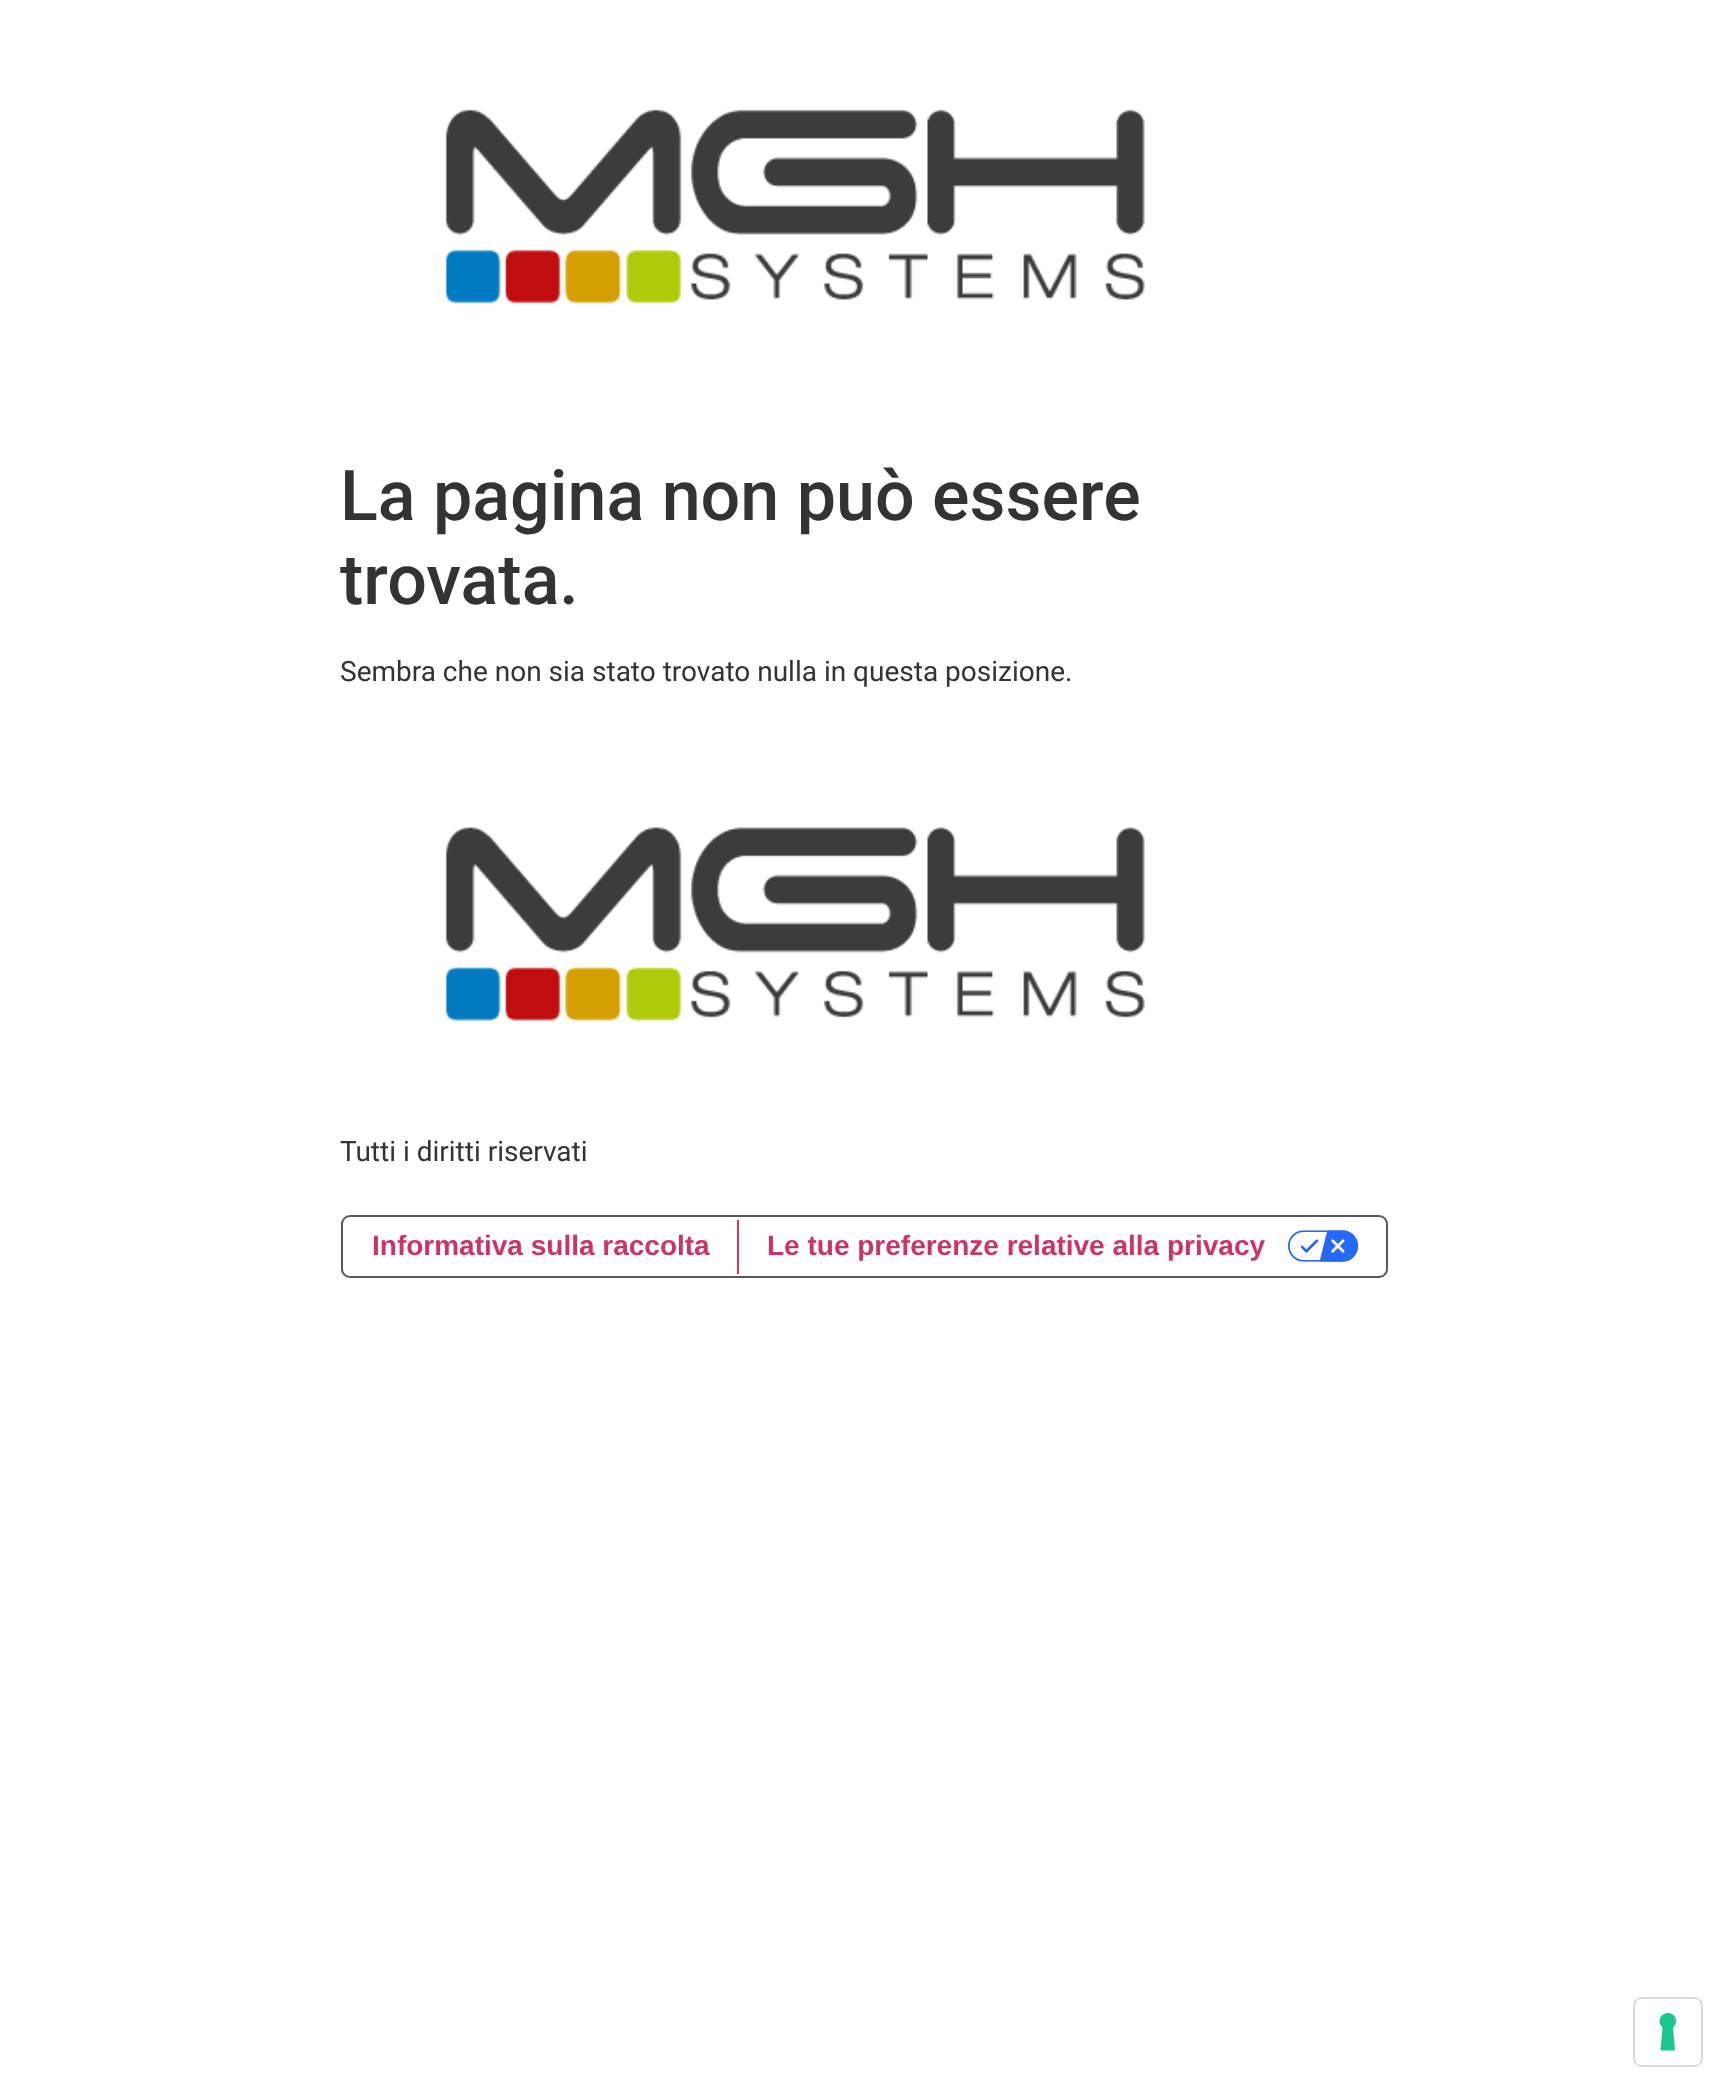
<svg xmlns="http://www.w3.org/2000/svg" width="1728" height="2093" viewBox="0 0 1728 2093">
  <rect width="100%" height="100%" fill="rgb(255,255,255)"/>
  <image x="445" y="109" width="700" height="195" href="pic1.png"/>
  <g font-family="Roboto" font-size="70" font-weight="500" fill="rgb(51,51,51)">
    <text>
      <tspan x="340" y="520">La pagina non può essere</tspan>
      <tspan x="340" y="604">trovata.</tspan>
    </text>
  </g>
  <text x="340" y="681" font-family="Roboto" font-size="28" fill="rgb(51,51,51)">Sembra che non sia stato trovato nulla in questa posizione.</text>
  <image x="445" y="827" width="700" height="194" href="pic2.png"/>
  <text x="340" y="1161" font-family="Roboto" font-size="28" fill="rgb(51,51,51)">Tutti i diritti riservati</text>
  <rect x="342" y="1216" width="1045" height="61" rx="8" fill="none" stroke="rgb(89,89,89)" stroke-width="2"/>
  <text x="372" y="1255" font-family="Liberation Sans" font-size="28" font-weight="bold" fill="rgb(204,51,102)">Informativa sulla raccolta</text>
  <rect x="737" y="1220" width="2" height="54" fill="rgb(204,51,102)"/>
  <text x="767" y="1255" font-family="Liberation Sans" font-size="28" font-weight="bold" fill="rgb(204,51,102)">Le tue preferenze relative alla privacy</text>
  <image x="1288" y="1230" width="70" height="32" href="pic3.png"/>
  <rect x="1634" y="1998" width="68" height="68" rx="8" fill="none" stroke="rgb(217,217,217)" stroke-width="2"/>
  <rect x="1635" y="1999" width="66" height="66" rx="7" fill="rgb(255,255,255)"/>
  <path d="M1668 2013C1675.5 2013 1679 2022.5 1673 2027.5L1675 2050.5H1660.5L1662.5 2027.5C1656.5 2022.5 1660 2013 1668 2013Z" fill="rgb(28,198,145)" fill-rule="evenodd"/>
</svg>
